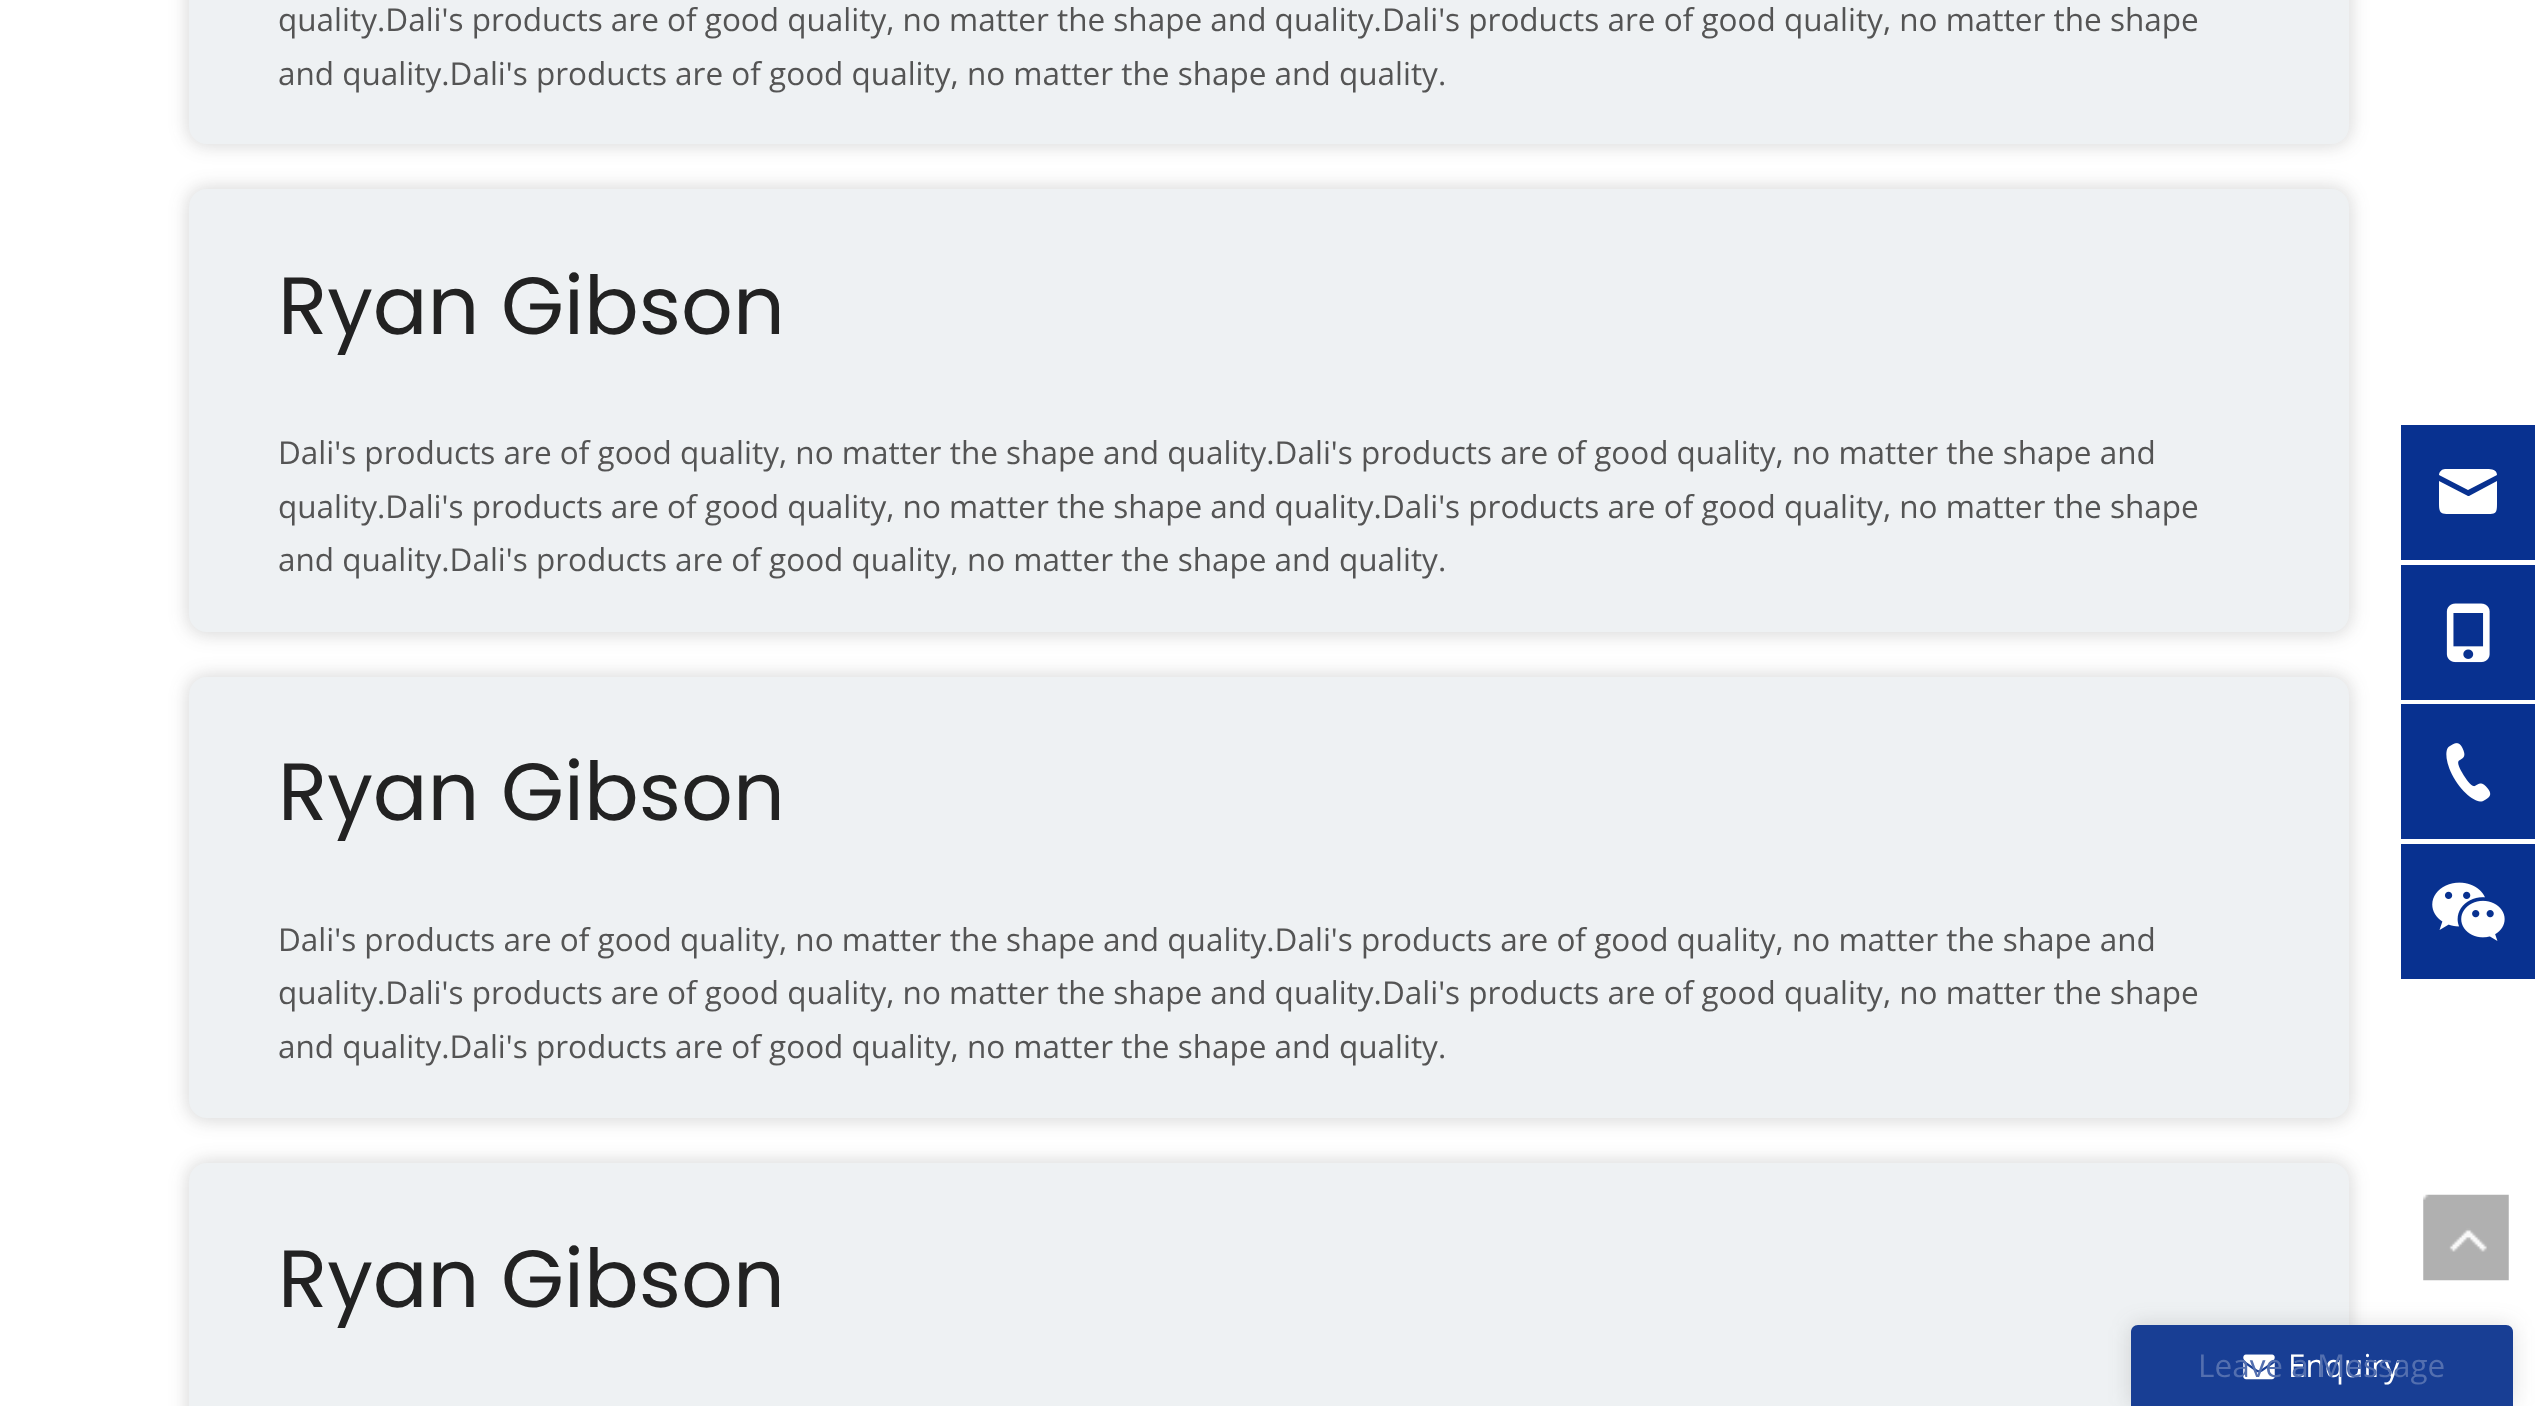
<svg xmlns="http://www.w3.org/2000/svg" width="2535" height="1406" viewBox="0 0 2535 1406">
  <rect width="100%" height="100%" fill="rgb(255,255,255)"/>
  <rect x="187" y="-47" width="2164" height="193" rx="20" fill="rgba(51,51,51,0.19)" filter="blur(9px)"/>
  <rect x="189" y="-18" width="2160" height="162" rx="18" fill="rgb(238,241,243)"/>
  <g font-family="Open Sans" font-size="31.5" fill="rgb(84,84,84)">
    <text>
      <tspan x="278" y="31">quality.Dali's products are of good quality, no matter the shape and quality.Dali's products are of good quality, no matter the shape</tspan>
      <tspan x="278" y="85">and quality.Dali's products are of good quality, no matter the shape and quality.</tspan>
    </text>
  </g>
  <rect x="187" y="187" width="2164" height="448" rx="20" fill="rgba(51,51,51,0.19)" filter="blur(9px)"/>
  <rect x="189" y="189" width="2160" height="443" rx="18" fill="rgb(238,241,243)"/>
  <text x="278" y="334" font-family="Poppins" font-size="81" fill="rgb(34,34,34)">Ryan Gibson</text>
  <g font-family="Open Sans" font-size="31.5" fill="rgb(84,84,84)">
    <text>
      <tspan x="278" y="464">Dali's products are of good quality, no matter the shape and quality.Dali's products are of good quality, no matter the shape and</tspan>
      <tspan x="278" y="518">quality.Dali's products are of good quality, no matter the shape and quality.Dali's products are of good quality, no matter the shape</tspan>
      <tspan x="278" y="571">and quality.Dali's products are of good quality, no matter the shape and quality.</tspan>
    </text>
  </g>
  <rect x="187" y="675" width="2164" height="446" rx="20" fill="rgba(51,51,51,0.19)" filter="blur(9px)"/>
  <rect x="189" y="677" width="2160" height="441" rx="18" fill="rgb(238,241,243)"/>
  <text x="278" y="820" font-family="Poppins" font-size="81" fill="rgb(34,34,34)">Ryan Gibson</text>
  <g font-family="Open Sans" font-size="31.5" fill="rgb(84,84,84)">
    <text>
      <tspan x="278" y="951">Dali's products are of good quality, no matter the shape and quality.Dali's products are of good quality, no matter the shape and</tspan>
      <tspan x="278" y="1004">quality.Dali's products are of good quality, no matter the shape and quality.Dali's products are of good quality, no matter the shape</tspan>
      <tspan x="278" y="1058">and quality.Dali's products are of good quality, no matter the shape and quality.</tspan>
    </text>
  </g>
  <rect x="187" y="1161" width="2164" height="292" rx="20" fill="rgba(51,51,51,0.19)" filter="blur(9px)"/>
  <rect x="189" y="1163" width="2160" height="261" rx="18" fill="rgb(238,241,243)"/>
  <text x="278" y="1307" font-family="Poppins" font-size="81" fill="rgb(34,34,34)">Ryan Gibson</text>
  <image x="2423" y="1194" width="86" height="87" href="pic1.png"/>
  <rect x="2401" y="425" width="134" height="135" fill="rgb(8,49,144)"/>
  <path d="M2445 469H2484C2488 469 2497 468 2497 475L2468 490L2439 475C2439 472 2442 469 2445 469ZM2439 481V504C2439 515 2442 514 2453 514H2484C2495 514 2497 515 2497 504V481L2469 496H2468Z" fill="rgb(255,255,255)"/>
  <rect x="2401" y="565" width="134" height="135" fill="rgb(8,49,144)"/>
  <image x="2446" y="603" width="44" height="60" href="pic2.png"/>
  <rect x="2401" y="704" width="134" height="135" fill="rgb(8,49,144)"/>
  <image x="2446" y="743" width="45" height="59" href="pic3.png"/>
  <rect x="2401" y="844" width="134" height="135" fill="rgb(8,49,144)"/>
  <image x="2432" y="882" width="73" height="59" href="pic4.png"/>
  <rect x="2131" y="1325" width="382" height="81" rx="7" fill="rgba(68,68,68,0.18)" filter="blur(11px)"/>
  <path d="M2138 1325H2506C2510 1325 2513 1328 2513 1332V1406H2131V1332C2131 1328 2134 1325 2138 1325Z" fill="rgb(24,62,148)"/>
  <text x="2288" y="1377" font-family="Open Sans" font-size="31.5" fill="rgb(255,255,255)">Enquiry</text>
  <image x="2243" y="1354" width="32" height="26" href="pic5.png"/>
  <text x="2198" y="1377" font-family="Open Sans" font-size="31.5" fill="rgb(83,111,175)">Leave a Message</text>
</svg>
